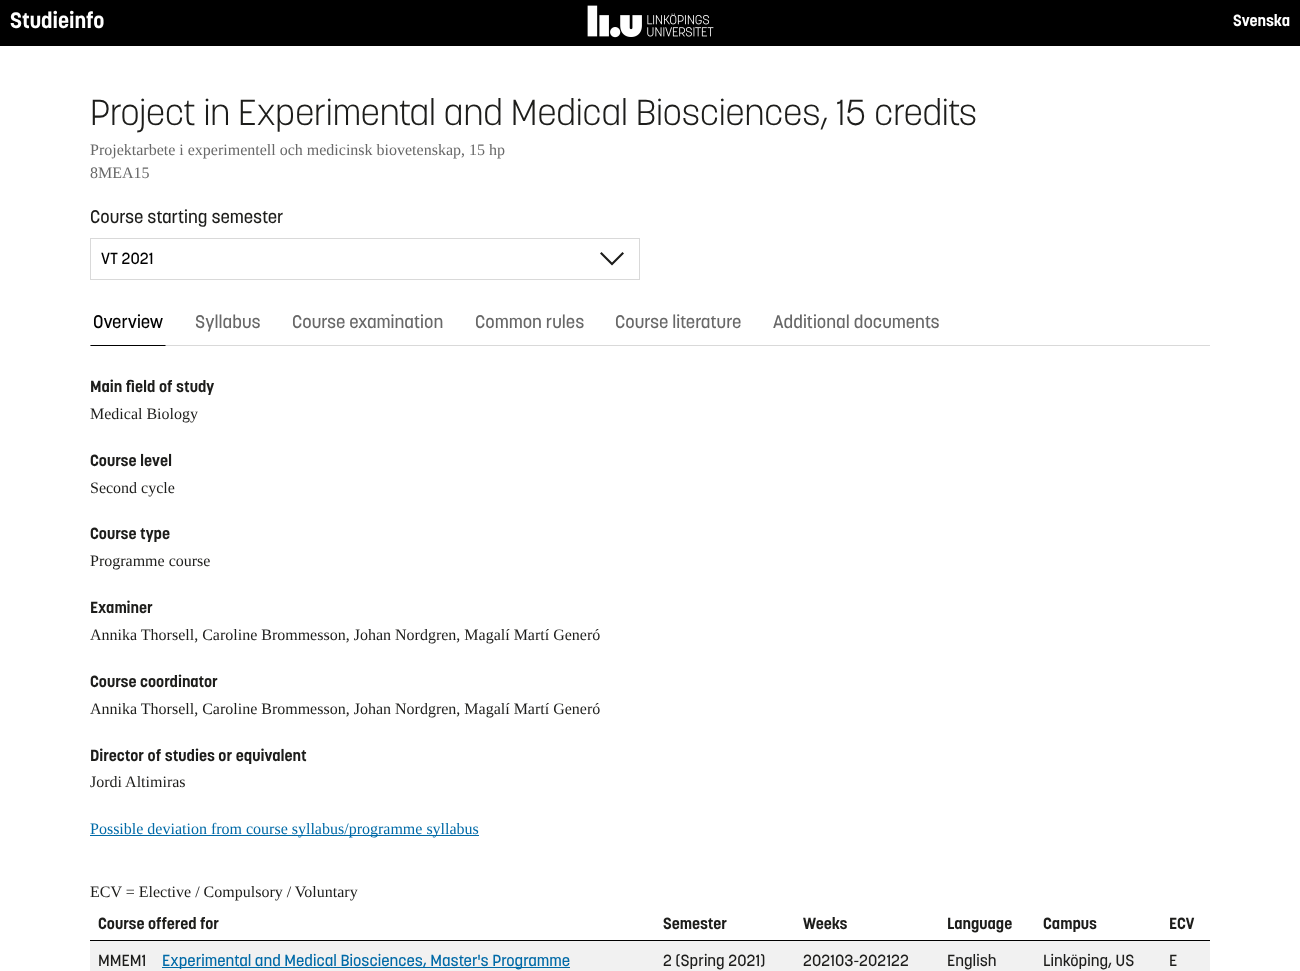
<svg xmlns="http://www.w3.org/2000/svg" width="1300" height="971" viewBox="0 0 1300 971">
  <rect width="100%" height="100%" fill="rgb(255,255,255)"/>
  <rect x="0" y="0" width="1300" height="46" fill="rgb(0,0,0)"/>
  <image x="587" y="5" width="127" height="33" href="pic1.png"/>
  <text x="10" y="28" font-family="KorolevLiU" font-size="22" font-weight="bold" fill="rgb(255,255,255)">Studieinfo</text>
  <text x="1233" y="26" font-family="KorolevLiU" font-size="16" font-weight="bold" fill="rgb(255,255,255)">Svenska</text>
  <text x="90" y="125" font-family="KorolevLiU" font-size="36" font-weight="300" fill="rgb(29,29,27)">Project in Experimental and Medical Biosciences, 15 credits</text>
  <g font-family="Liberation Serif" font-size="16" fill="rgb(104,104,104)">
    <text>
      <tspan x="90" y="155">Projektarbete i experimentell och medicinsk biovetenskap, 15 hp</tspan>
      <tspan x="90" y="178">8MEA15</tspan>
    </text>
  </g>
  <text x="90" y="223" font-family="KorolevLiU" font-size="18" font-weight="500" fill="rgb(29,29,27)">Course starting semester</text>
  <rect x="90.5" y="238.5" width="549" height="41" fill="none" stroke="rgb(217,217,217)"/>
  <text x="101" y="264" font-family="KorolevLiU" font-size="16" font-weight="500" fill="rgb(0,0,0)">VT 2021</text>
  <path d="M612 265.5L600 253.5L601.5 252L612 262.5L622.5 252L624 253.5Z" fill="rgb(29,29,27)"/>
  <rect x="90" y="345" width="1120" height="1" fill="rgb(217,217,217)"/>
  <path d="M166 346H90L91 345H165Z" fill="rgb(0,0,0)"/>
  <text x="93" y="328" font-family="KorolevLiU" font-size="18" font-weight="500" fill="rgb(0,0,0)">Overview</text>
  <g font-family="KorolevLiU" font-size="18" font-weight="500" fill="rgb(104,104,104)">
    <text x="195" y="328">Syllabus</text>
    <text x="292" y="328">Course examination</text>
    <text x="475" y="328">Common rules</text>
    <text x="615" y="328">Course literature</text>
    <text x="773" y="328">Additional documents</text>
  </g>
  <text x="90" y="392" font-family="KorolevLiU" font-size="16" font-weight="bold" fill="rgb(29,29,27)">Main field of study</text>
  <text x="90" y="419" font-family="Liberation Serif" font-size="16" fill="rgb(29,29,27)">Medical Biology</text>
  <text x="90" y="466" font-family="KorolevLiU" font-size="16" font-weight="bold" fill="rgb(29,29,27)">Course level</text>
  <text x="90" y="493" font-family="Liberation Serif" font-size="16" fill="rgb(29,29,27)">Second cycle</text>
  <text x="90" y="539" font-family="KorolevLiU" font-size="16" font-weight="bold" fill="rgb(29,29,27)">Course type</text>
  <text x="90" y="566" font-family="Liberation Serif" font-size="16" fill="rgb(29,29,27)">Programme course</text>
  <text x="90" y="613" font-family="KorolevLiU" font-size="16" font-weight="bold" fill="rgb(29,29,27)">Examiner</text>
  <text x="90" y="640" font-family="Liberation Serif" font-size="16" fill="rgb(29,29,27)">Annika Thorsell, Caroline Brommesson, Johan Nordgren, Magalí Martí Generó</text>
  <text x="90" y="687" font-family="KorolevLiU" font-size="16" font-weight="bold" fill="rgb(29,29,27)">Course coordinator</text>
  <text x="90" y="714" font-family="Liberation Serif" font-size="16" fill="rgb(29,29,27)">Annika Thorsell, Caroline Brommesson, Johan Nordgren, Magalí Martí Generó</text>
  <text x="90" y="761" font-family="KorolevLiU" font-size="16" font-weight="bold" fill="rgb(29,29,27)">Director of studies or equivalent</text>
  <text x="90" y="787" font-family="Liberation Serif" font-size="16" fill="rgb(29,29,27)">Jordi Altimiras</text>
  <rect x="90" y="835" width="389" height="1" fill="rgb(0,106,167)"/>
  <text x="90" y="834" font-family="Liberation Serif" font-size="16" fill="rgb(0,106,167)">Possible deviation from course syllabus/programme syllabus</text>
  <text x="90" y="897" font-family="Liberation Serif" font-size="16" fill="rgb(29,29,27)">ECV = Elective / Compulsory / Voluntary</text>
  <rect x="90" y="940" width="1120" height="1" fill="rgb(0,0,0)"/>
  <g font-family="KorolevLiU" font-size="16" font-weight="bold" fill="rgb(29,29,27)">
    <text x="98" y="929">Course offered for</text>
    <text x="663" y="929">Semester</text>
    <text x="803" y="929">Weeks</text>
    <text x="947" y="929">Language</text>
    <text x="1043" y="929">Campus</text>
    <text x="1169" y="929">ECV</text>
  </g>
  <rect x="90" y="941" width="1120" height="30" fill="rgb(241,241,241)"/>
  <text x="98" y="966" font-family="KorolevLiU" font-size="16" font-weight="500" fill="rgb(29,29,27)">MMEM1</text>
  <rect x="162" y="967" width="408" height="1" fill="rgb(0,106,167)"/>
  <text x="162" y="966" font-family="KorolevLiU" font-size="16" font-weight="500" fill="rgb(0,106,167)">Experimental and Medical Biosciences, Master's Programme</text>
  <g font-family="KorolevLiU" font-size="16" font-weight="500" fill="rgb(29,29,27)">
    <text x="663" y="966">2 (Spring 2021)</text>
    <text x="803" y="966">202103-202122</text>
    <text x="947" y="966">English</text>
    <text x="1043" y="966">Linköping, US</text>
    <text x="1169" y="966">E</text>
  </g>
</svg>
